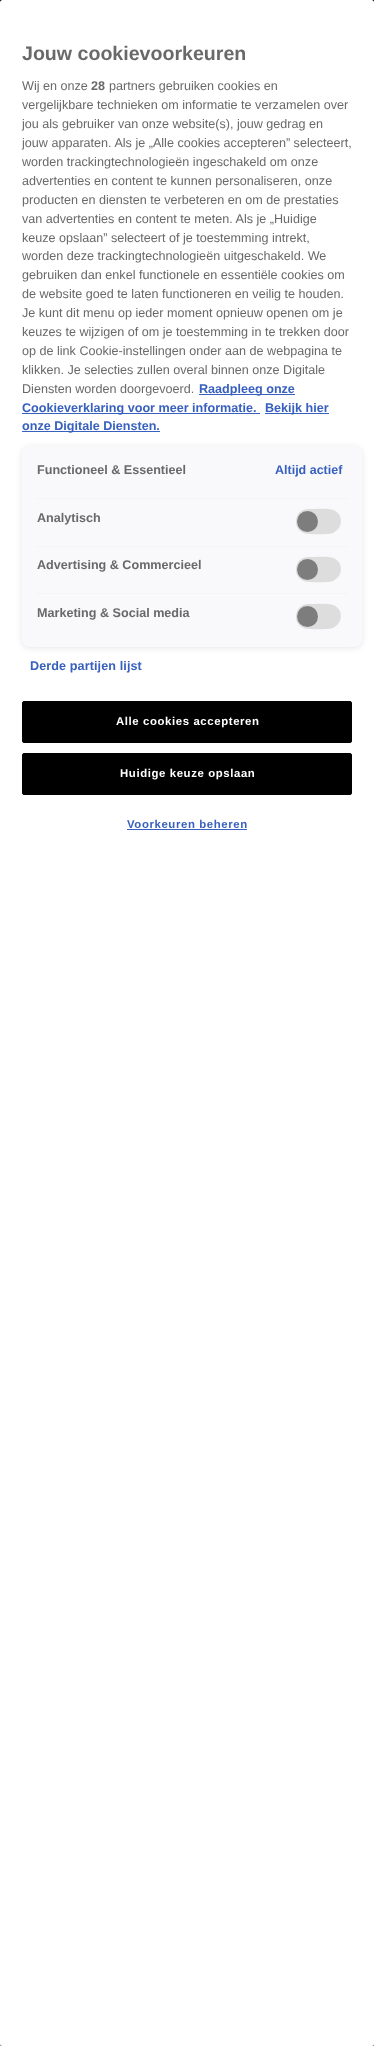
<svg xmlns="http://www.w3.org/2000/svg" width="374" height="2046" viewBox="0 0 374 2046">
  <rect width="100%" height="100%" fill="rgb(128,128,128)"/>
  <rect x="0" y="0" width="374" height="3" fill="rgb(0,0,0)"/>
  <rect x="0" y="0" width="374" height="2046" rx="2.5" fill="rgba(0,0,0,0.2)" filter="blur(9px)"/>
  <rect x="0" y="0" width="374" height="2046" rx="2.5" fill="rgb(255,255,255)"/>
  <text x="22" y="60" font-family="Liberation Sans" font-size="19.6" font-weight="bold" fill="rgb(105,105,105)">Jouw cookievoorkeuren</text>
  <text x="22" y="90" font-family="Liberation Sans" font-size="12.6" fill="rgb(105,105,105)">Wij en onze</text>
  <text x="91" y="90" font-family="Liberation Sans" font-size="12.6" font-weight="bold" fill="rgb(105,105,105)">28</text>
  <g font-family="Liberation Sans" font-size="12.6" fill="rgb(105,105,105)">
    <text x="109" y="90">partners gebruiken cookies en</text>
    <text>
      <tspan x="22" y="109">vergelijkbare technieken om informatie te verzamelen over</tspan>
      <tspan x="22" y="128">jou als gebruiker van onze website(s), jouw gedrag en</tspan>
      <tspan x="22" y="147">jouw apparaten. Als je „Alle cookies accepteren” selecteert,</tspan>
      <tspan x="22" y="166">worden trackingtechnologieën ingeschakeld om onze</tspan>
      <tspan x="22" y="185">advertenties en content te kunnen personaliseren, onze</tspan>
      <tspan x="22" y="204">producten en diensten te verbeteren en om de prestaties</tspan>
      <tspan x="22" y="223">van advertenties en content te meten. Als je „Huidige</tspan>
      <tspan x="22" y="242">keuze opslaan” selecteert of je toestemming intrekt,</tspan>
      <tspan x="22" y="260">worden deze trackingtechnologieën uitgeschakeld. We</tspan>
      <tspan x="22" y="279">gebruiken dan enkel functionele en essentiële cookies om</tspan>
      <tspan x="22" y="298">de website goed te laten functioneren en veilig te houden.</tspan>
      <tspan x="22" y="317">Je kunt dit menu op ieder moment opnieuw openen om je</tspan>
      <tspan x="22" y="336">keuzes te wijzigen of om je toestemming in te trekken door</tspan>
      <tspan x="22" y="355">op de link Cookie-instellingen onder aan de webpagina te</tspan>
      <tspan x="22" y="374">klikken. Je selecties zullen overal binnen onze Digitale</tspan>
      <tspan x="22" y="393">Diensten worden doorgevoerd.</tspan>
    </text>
  </g>
  <rect x="199" y="394" width="96" height="1" fill="rgb(56,96,190)"/>
  <text x="199" y="393" font-family="Liberation Sans" font-size="12.6" font-weight="bold" fill="rgb(56,96,190)">Raadpleeg onze</text>
  <rect x="22" y="413" width="238" height="1" fill="rgb(56,96,190)"/>
  <text x="22" y="412" font-family="Liberation Sans" font-size="12.6" font-weight="bold" fill="rgb(56,96,190)">Cookieverklaring voor meer informatie.</text>
  <rect x="265" y="413" width="64" height="1" fill="rgb(56,96,190)"/>
  <text x="265" y="412" font-family="Liberation Sans" font-size="12.6" font-weight="bold" fill="rgb(56,96,190)">Bekijk hier</text>
  <rect x="22" y="431" width="138" height="1" fill="rgb(56,96,190)"/>
  <text x="22" y="430" font-family="Liberation Sans" font-size="12.6" font-weight="bold" fill="rgb(56,96,190)">onze Digitale Diensten.</text>
  <rect x="22" y="447" width="340" height="201" rx="8" fill="rgba(0,0,0,0.1)" filter="blur(3px)"/>
  <rect x="22" y="446" width="340" height="201" rx="8" fill="rgb(249,249,252)"/>
  <rect x="37" y="498" width="310" height="1" fill="rgb(244,244,244)"/>
  <text x="37" y="474" font-family="Liberation Sans" font-size="12.6" font-weight="bold" fill="rgb(105,105,105)">Functioneel &amp; Essentieel</text>
  <text x="275" y="474" font-family="Liberation Sans" font-size="12.5" font-weight="bold" fill="rgb(56,96,190)">Altijd actief</text>
  <rect x="37" y="546" width="310" height="1" fill="rgb(244,244,244)"/>
  <text x="37" y="522" font-family="Liberation Sans" font-size="12.6" font-weight="bold" fill="rgb(105,105,105)">Analytisch</text>
  <rect x="296" y="509" width="45" height="25" rx="12.5" fill="rgb(242,241,241)"/>
  <path d="M308 509C315 509 328 508 333 510C346 515 342 533 328 534C323 534 308 535 304 533C291 528 295 509 308 509Z" fill="rgb(221,221,221)"/>
  <circle cx="307.5" cy="521.5" r="10.5" fill="rgb(125,125,125)"/>
  <rect x="37" y="593" width="310" height="1" fill="rgb(244,244,244)"/>
  <text x="37" y="569" font-family="Liberation Sans" font-size="12.6" font-weight="bold" fill="rgb(105,105,105)">Advertising &amp; Commercieel</text>
  <rect x="296" y="557" width="45" height="25" rx="12.5" fill="rgb(242,241,241)"/>
  <path d="M308 557C315 557 328 556 333 558C346 563 342 581 328 582C323 582 308 583 304 581C291 576 295 557 308 557Z" fill="rgb(221,221,221)"/>
  <circle cx="307.5" cy="569.5" r="10.5" fill="rgb(125,125,125)"/>
  <text x="37" y="617" font-family="Liberation Sans" font-size="12.6" font-weight="bold" fill="rgb(105,105,105)">Marketing &amp; Social media</text>
  <rect x="296" y="604" width="45" height="25" rx="12.5" fill="rgb(242,241,241)"/>
  <path d="M308 604C315 604 328 603 333 605C346 610 342 628 328 629C323 629 308 630 304 628C291 623 295 604 308 604Z" fill="rgb(221,221,221)"/>
  <circle cx="307.5" cy="616.5" r="10.5" fill="rgb(125,125,125)"/>
  <text x="30" y="670" font-family="Liberation Sans" font-size="12.6" font-weight="bold" letter-spacing="0.1" fill="rgb(56,96,190)">Derde partijen lijst</text>
  <rect x="22.5" y="701.5" width="329" height="41" rx="1.5" fill="rgb(0,0,0)" stroke="rgb(0,0,0)"/>
  <text x="116" y="725" font-family="Liberation Sans" font-size="11.4" font-weight="bold" letter-spacing="0.6" fill="rgb(255,255,255)">Alle cookies accepteren</text>
  <rect x="22.5" y="753.5" width="329" height="41" rx="1.5" fill="rgb(0,0,0)" stroke="rgb(0,0,0)"/>
  <text x="120" y="777" font-family="Liberation Sans" font-size="11.4" font-weight="bold" letter-spacing="0.6" fill="rgb(255,255,255)">Huidige keuze opslaan</text>
  <text x="127" y="828" font-family="Liberation Sans" font-size="11.4" font-weight="bold" letter-spacing="0.6" fill="rgb(56,96,190)">Voorkeuren beheren</text>
  <rect x="127" y="829" width="120" height="1" fill="rgb(56,96,190)"/>
</svg>
